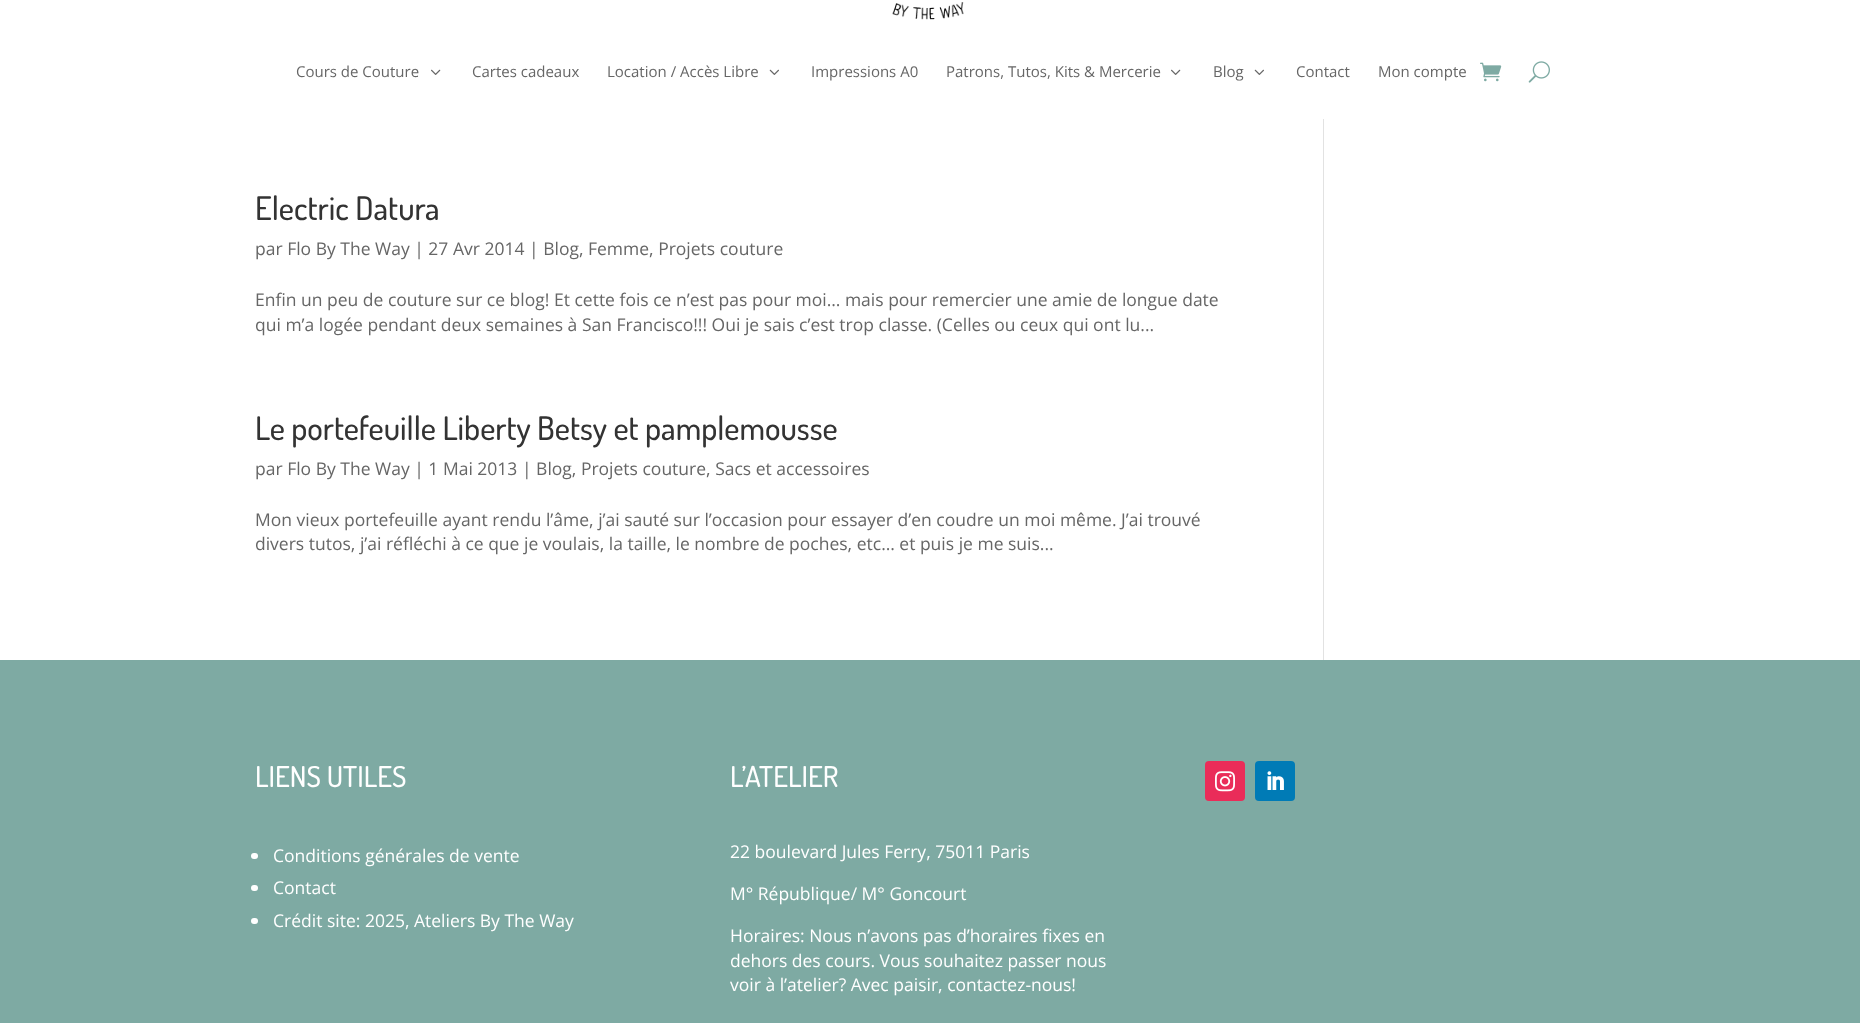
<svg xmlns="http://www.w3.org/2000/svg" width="1860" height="1023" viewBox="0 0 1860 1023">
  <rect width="100%" height="100%" fill="rgb(255,255,255)"/>
  <image x="892" y="2" width="72" height="18" href="pic1.png"/>
  <text x="296" y="77" font-family="Open Sans" font-size="15" fill="rgb(102,102,102)">Cours de Couture</text>
  <image x="431" y="69" width="10" height="6" href="pic2.png"/>
  <g font-family="Open Sans" font-size="15" fill="rgb(102,102,102)">
    <text x="472" y="77">Cartes cadeaux</text>
    <text x="607" y="77">Location / Accès Libre</text>
  </g>
  <image x="769" y="69" width="10" height="6" href="pic3.png"/>
  <g font-family="Open Sans" font-size="15" fill="rgb(102,102,102)">
    <text x="811" y="77">Impressions A0</text>
    <text x="946" y="77">Patrons, Tutos, Kits &amp; Mercerie</text>
  </g>
  <image x="1171" y="69" width="10" height="6" href="pic2.png"/>
  <text x="1213" y="77" font-family="Open Sans" font-size="15" fill="rgb(102,102,102)">Blog</text>
  <image x="1254" y="69" width="10" height="6" href="pic3.png"/>
  <g font-family="Open Sans" font-size="15" fill="rgb(102,102,102)">
    <text x="1296" y="77">Contact</text>
    <text x="1378" y="77">Mon compte</text>
  </g>
  <image x="1480" y="62" width="22" height="20" href="pic4.png"/>
  <image x="1528" y="61" width="22" height="22" href="pic5.png"/>
  <text x="255" y="220" font-family="Dosis" font-size="32.5" font-weight="500" fill="rgb(51,51,51)">Electric Datura</text>
  <g font-family="Open Sans" font-size="17.5" fill="rgb(102,102,102)">
    <text x="255" y="255">par Flo By The Way | 27 Avr 2014 | Blog, Femme, Projets couture</text>
    <text>
      <tspan x="255" y="306">Enfin un peu de couture sur ce blog! Et cette fois ce n’est pas pour moi… mais pour remercier une amie de longue date</tspan>
      <tspan x="255" y="331">qui m’a logée pendant deux semaines à San Francisco!!! Oui je sais c’est trop classe. (Celles ou ceux qui ont lu...</tspan>
    </text>
  </g>
  <text x="255" y="440" font-family="Dosis" font-size="32.5" font-weight="500" fill="rgb(51,51,51)">Le portefeuille Liberty Betsy et pamplemousse</text>
  <g font-family="Open Sans" font-size="17.5" fill="rgb(102,102,102)">
    <text x="255" y="475">par Flo By The Way | 1 Mai 2013 | Blog, Projets couture, Sacs et accessoires</text>
    <text>
      <tspan x="255" y="526">Mon vieux portefeuille ayant rendu l’âme, j’ai sauté sur l’occasion pour essayer d’en coudre un moi même. J’ai trouvé</tspan>
      <tspan x="255" y="550">divers tutos, j’ai réfléchi à ce que je voulais, la taille, le nombre de poches, etc… et puis je me suis...</tspan>
    </text>
  </g>
  <rect x="1323" y="119" width="1" height="541" fill="rgb(226,226,226)"/>
  <rect x="0" y="660" width="1860" height="363" fill="rgb(126,170,163)"/>
  <text x="255" y="787" font-family="Dosis" font-size="28.75" font-weight="500" fill="rgb(255,255,255)">LIENS UTILES</text>
  <rect x="251" y="853" width="7" height="6" rx="3" fill="rgb(255,255,255)"/>
  <text x="273" y="862" font-family="Open Sans" font-size="17.5" fill="rgb(255,255,255)">Conditions générales de vente</text>
  <rect x="251" y="885" width="7" height="6" rx="3" fill="rgb(255,255,255)"/>
  <text x="273" y="894" font-family="Open Sans" font-size="17.5" fill="rgb(255,255,255)">Contact</text>
  <rect x="251" y="918" width="7" height="6" rx="3" fill="rgb(255,255,255)"/>
  <text x="273" y="927" font-family="Open Sans" font-size="17.5" fill="rgb(255,255,255)">Crédit site: 2025, Ateliers By The Way</text>
  <text x="730" y="787" font-family="Dosis" font-size="28.75" font-weight="500" fill="rgb(255,255,255)">L’ATELIER</text>
  <g font-family="Open Sans" font-size="17.5" fill="rgb(255,255,255)">
    <text x="730" y="858">22 boulevard Jules Ferry, 75011 Paris</text>
    <text x="730" y="900">M° République/ M° Goncourt</text>
    <text>
      <tspan x="730" y="942">Horaires: Nous n’avons pas d’horaires fixes en</tspan>
      <tspan x="730" y="967">dehors des cours. Vous souhaitez passer nous</tspan>
      <tspan x="730" y="991">voir à l’atelier? Avec paisir, contactez-nous!</tspan>
    </text>
  </g>
  <rect x="1205" y="761" width="40" height="40" rx="4" fill="rgb(234,44,89)"/>
  <image x="1215" y="771" width="20" height="21" href="pic6.png"/>
  <rect x="1255" y="761" width="40" height="40" rx="4" fill="rgb(0,123,182)"/>
  <image x="1267" y="771" width="17" height="19" href="pic7.png"/>
</svg>
